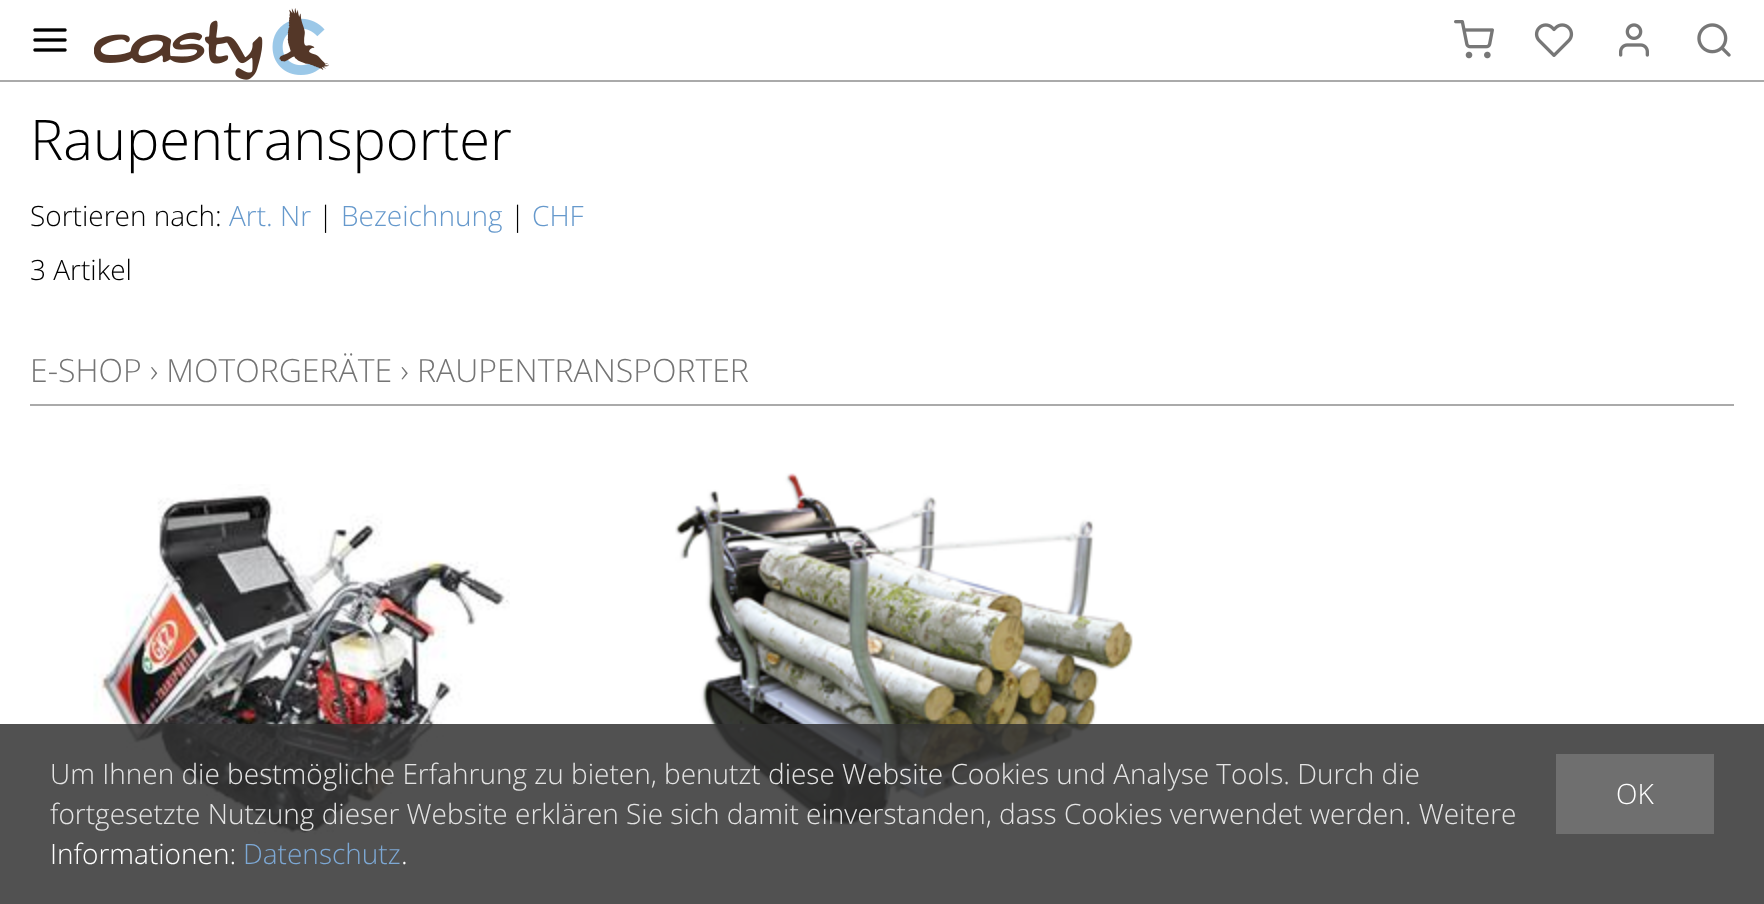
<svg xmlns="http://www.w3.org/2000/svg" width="1764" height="904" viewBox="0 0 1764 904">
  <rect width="100%" height="100%" fill="rgb(255,255,255)"/>
  <rect x="0" y="80" width="1764" height="2" fill="rgb(170,170,170)"/>
  <image x="33" y="28" width="34" height="24" href="pic1.png"/>
  <image x="94" y="8" width="235" height="72" href="pic2.png"/>
  <image x="1454" y="20" width="40" height="39" href="pic3.png"/>
  <image x="1534" y="23" width="40" height="34" href="pic4.png"/>
  <image x="1619" y="23" width="30" height="34" href="pic5.png"/>
  <image x="1697" y="23" width="34" height="34" href="pic6.png"/>
  <text x="30" y="160" font-family="Open Sans" font-size="56" font-weight="300" fill="rgb(0,0,0)">Raupentransporter</text>
  <text x="30" y="226" font-family="Open Sans" font-size="28" font-weight="300" fill="rgb(0,0,0)">Sortieren nach:</text>
  <text x="229" y="226" font-family="Open Sans" font-size="28" font-weight="300" fill="rgb(102,153,204)">Art. Nr</text>
  <text x="318" y="226" font-family="Open Sans" font-size="28" font-weight="300" fill="rgb(0,0,0)">|</text>
  <text x="341" y="226" font-family="Open Sans" font-size="28" font-weight="300" fill="rgb(102,153,204)">Bezeichnung</text>
  <text x="510" y="226" font-family="Open Sans" font-size="28" font-weight="300" fill="rgb(0,0,0)">|</text>
  <text x="532" y="226" font-family="Open Sans" font-size="28" font-weight="300" fill="rgb(102,153,204)">CHF</text>
  <text x="30" y="280" font-family="Open Sans" font-size="28" font-weight="300" fill="rgb(0,0,0)">3 Artikel</text>
  <rect x="30" y="404" width="1704" height="2" fill="rgb(170,170,170)"/>
  <text x="30" y="382" font-family="Open Sans" font-size="32" font-weight="300" fill="rgb(116,116,116)">E-SHOP › MOTORGERÄTE › RAUPENTRANSPORTER</text>
  <image x="93" y="484" width="417" height="351" href="pic7.png"/>
  <image x="675" y="473" width="458" height="352" href="pic8.png"/>
  <rect x="0" y="724" width="1764" height="180" fill="rgba(51,51,51,0.85)"/>
  <text x="50" y="784" font-family="Open Sans" font-size="28" font-weight="300" fill="rgb(228,228,228)">Um Ihnen die bestmögliche Erfahrung zu bieten, benutzt diese Website Cookies und Analyse Tools. Durch die</text>
  <rect x="1556" y="754" width="158" height="80" fill="rgb(111,111,111)"/>
  <text x="1616" y="804" font-family="Open Sans" font-size="28" font-weight="300" fill="rgb(255,255,255)">OK</text>
  <text x="50" y="824" font-family="Open Sans" font-size="28" font-weight="300" fill="rgb(228,228,228)">fortgesetzte Nutzung dieser Website erklären Sie sich damit einverstanden, dass Cookies verwendet werden. Weitere</text>
  <text x="50" y="864" font-family="Open Sans" font-size="28" font-weight="300" fill="rgb(255,255,255)">Informationen:</text>
  <text x="243" y="864" font-family="Open Sans" font-size="28" font-weight="300" fill="rgb(125,168,212)">Datenschutz</text>
  <text x="401" y="864" font-family="Open Sans" font-size="28" font-weight="300" fill="rgb(255,255,255)">.</text>
</svg>
